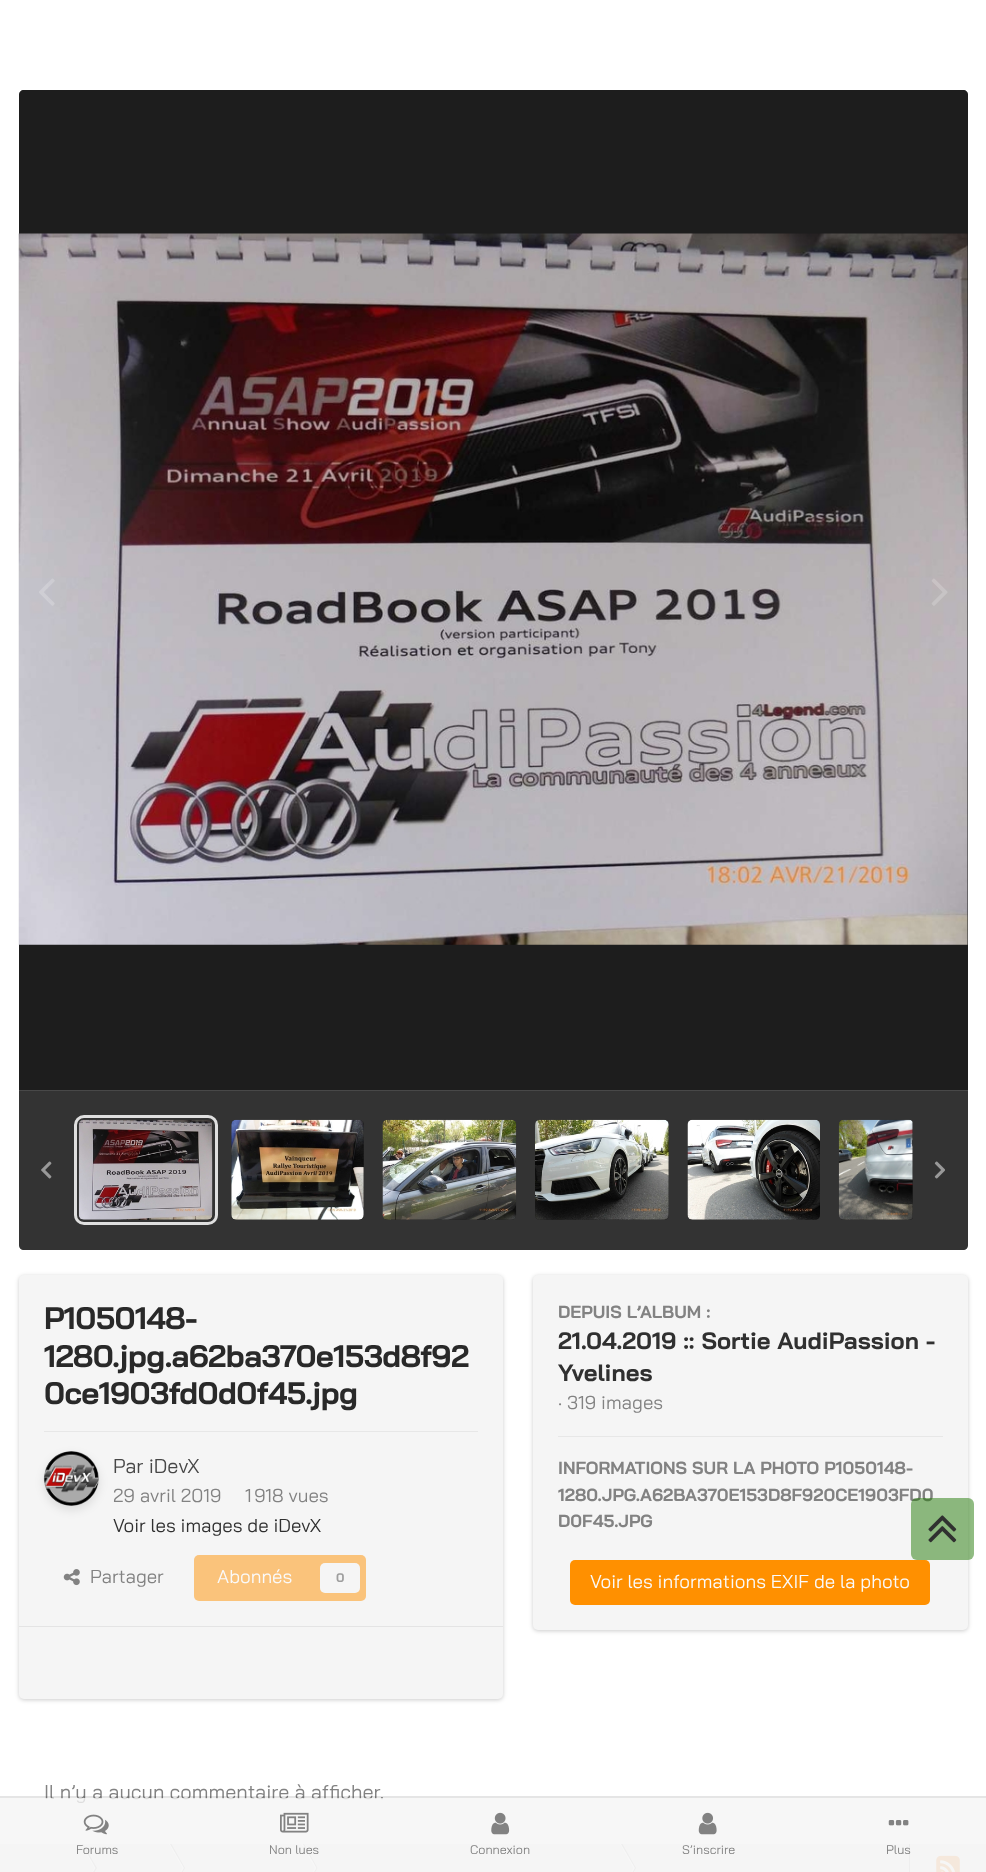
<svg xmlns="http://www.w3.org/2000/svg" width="986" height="1872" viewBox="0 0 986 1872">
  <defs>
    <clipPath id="clip1"><rect x="74" y="1115" width="839" height="110"/></clipPath>
    <clipPath id="clip2"><path d="M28 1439H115V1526H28ZM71.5 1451C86.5 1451 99 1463.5 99 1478.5C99 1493.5 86.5 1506 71.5 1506C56.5 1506 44 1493.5 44 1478.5C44 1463.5 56.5 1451 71.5 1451Z" clip-rule="evenodd"/></clipPath>
  </defs>
  <rect width="100%" height="100%" fill="rgb(255,255,255)"/>
  <path d="M24 90H963C966 90 968 92 968 95V1090H19V95C19 92 21 90 24 90Z" fill="rgb(74,74,74)"/>
  <path d="M24 90H963C966 90 968 92 968 95V1090H19V95C19 92 21 90 24 90Z" fill="rgba(0,0,0,0.6)"/>
  <image x="18" y="233" width="950" height="712" href="pic1.png"/>
  <image x="39" y="578" width="16" height="28" href="pic2.png"/>
  <image x="931" y="578" width="17" height="28" href="pic3.png"/>
  <path d="M19 1090H968V1245C968 1248 966 1250 963 1250H24C21 1250 19 1248 19 1245Z" fill="rgb(74,74,74)"/>
  <path d="M19 1090H968V1245C968 1248 966 1250 963 1250H24C21 1250 19 1248 19 1245Z" fill="rgba(0,0,0,0.3)"/>
  <rect x="19" y="1090" width="949" height="1" fill="rgb(72,72,72)"/>
  <rect x="79" y="1120" width="134" height="100" rx="5" fill="rgb(20,20,20)"/>
  <rect x="79" y="1120" width="134" height="100" rx="5" fill="rgba(74,74,74,0.3)"/>
  <rect x="75.5" y="1116.5" width="141" height="107" rx="8.5" fill="none" stroke="rgb(223,223,223)" stroke-width="3"/>
  <image x="78" y="1119" width="135" height="101" href="pic4.png"/>
  <rect x="231" y="1120" width="133" height="100" rx="5" fill="rgb(20,20,20)"/>
  <rect x="231" y="1120" width="133" height="100" rx="5" fill="rgba(74,74,74,0.3)"/>
  <image x="231" y="1119" width="133" height="101" href="pic5.png"/>
  <rect x="383" y="1120" width="133" height="100" rx="5" fill="rgb(20,20,20)"/>
  <rect x="383" y="1120" width="133" height="100" rx="5" fill="rgba(74,74,74,0.3)"/>
  <image x="382" y="1119" width="135" height="101" href="pic6.png"/>
  <rect x="535" y="1120" width="134" height="100" rx="5" fill="rgb(20,20,20)"/>
  <rect x="535" y="1120" width="134" height="100" rx="5" fill="rgba(74,74,74,0.3)"/>
  <image x="535" y="1119" width="134" height="101" href="pic7.png"/>
  <rect x="688" y="1120" width="132" height="100" rx="5" fill="rgb(20,20,20)"/>
  <rect x="688" y="1120" width="132" height="100" rx="5" fill="rgba(74,74,74,0.3)"/>
  <image x="687" y="1119" width="133" height="101" href="pic8.png"/>
  <g clip-path="url(#clip1)">
    <rect x="839" y="1120" width="75" height="100" rx="5" fill="rgb(20,20,20)"/>
    <rect x="839" y="1120" width="75" height="100" rx="5" fill="rgba(74,74,74,0.3)"/>
  </g>
  <image x="838" y="1119" width="75" height="101" href="pic9.png"/>
  <image x="41" y="1161" width="11" height="18" href="pic10.png"/>
  <image x="934" y="1161" width="11" height="18" href="pic11.png"/>
  <rect x="19" y="1276" width="484" height="424" rx="5" fill="rgba(0,0,0,0.2)" filter="blur(2px)"/>
  <rect x="19" y="1275" width="484" height="424" rx="5" fill="rgb(245,245,245)"/>
  <g font-family="Bai Jamjuree" font-size="31.25" font-weight="bold" letter-spacing="-0.6" fill="rgb(41,41,41)">
    <text>
      <tspan x="44" y="1329">P1050148-</tspan>
      <tspan x="44" y="1367">1280.jpg.a62ba370e153d8f92</tspan>
      <tspan x="44" y="1404">0ce1903fd0d0f45.jpg</tspan>
    </text>
  </g>
  <rect x="44" y="1431" width="434" height="1" fill="rgb(231,231,231)"/>
  <image x="43" y="1451" width="56" height="55" href="pic12.png"/>
  <g clip-path="url(#clip2)">
    <rect x="44" y="1455" width="55" height="55" rx="27.5" fill="rgba(0,0,0,0.1)" filter="blur(5px)"/>
  </g>
  <circle cx="71.5" cy="1478.5" r="27" fill="none" stroke="rgba(71,71,71,0.3)"/>
  <text x="113" y="1473" font-family="Bai Jamjuree" font-size="20" fill="rgb(71,71,71)">Par iDevX</text>
  <g font-family="Bai Jamjuree" font-size="18.75" fill="rgb(130,130,130)">
    <text x="113" y="1502">29 avril 2019</text>
    <text x="245" y="1502">1 918 vues</text>
  </g>
  <text x="113" y="1532" font-family="Bai Jamjuree" font-size="18.75" fill="rgb(48,48,48)">Voir les images de iDevX</text>
  <image x="63" y="1569" width="17" height="17" href="pic13.png"/>
  <text x="90" y="1583" font-family="Bai Jamjuree" font-size="18.75" fill="rgb(130,130,130)">Partager</text>
  <rect x="194" y="1555" width="172" height="46" rx="5" fill="rgb(250,195,123)"/>
  <text x="217" y="1583" font-family="Bai Jamjuree" font-size="18.75" fill="rgb(250,250,250)">Abonnés</text>
  <rect x="320" y="1563" width="40" height="30" rx="5" fill="rgb(245,245,245)"/>
  <text x="336" y="1582" font-family="Bai Jamjuree" font-size="12.5" font-weight="bold" fill="rgb(158,158,158)">0</text>
  <rect x="19" y="1626" width="484" height="1" fill="rgb(228,228,228)"/>
  <rect x="533" y="1276" width="435" height="355" rx="5" fill="rgba(0,0,0,0.2)" filter="blur(2px)"/>
  <rect x="533" y="1275" width="435" height="355" rx="5" fill="rgb(245,245,245)"/>
  <text x="558" y="1318" font-family="Bai Jamjuree" font-size="17.5" font-weight="bold" fill="rgb(130,130,130)">DEPUIS L’ALBUM :</text>
  <g font-family="Bai Jamjuree" font-size="23.75" font-weight="bold" fill="rgb(48,48,48)">
    <text>
      <tspan x="558" y="1349">21.04.2019 :: Sortie AudiPassion -</tspan>
      <tspan x="558" y="1381">Yvelines</tspan>
    </text>
  </g>
  <text x="558" y="1409" font-family="Bai Jamjuree" font-size="18.75" fill="rgb(130,130,130)">· 319 images</text>
  <rect x="558" y="1436" width="385" height="1" fill="rgb(231,231,231)"/>
  <g font-family="Bai Jamjuree" font-size="17.5" font-weight="bold" fill="rgb(130,130,130)">
    <text>
      <tspan x="558" y="1474">INFORMATIONS SUR LA PHOTO P1050148-</tspan>
      <tspan x="558" y="1501">1280.JPG.A62BA370E153D8F920CE1903FD0</tspan>
      <tspan x="558" y="1527">D0F45.JPG</tspan>
    </text>
  </g>
  <rect x="570" y="1560" width="360" height="45" rx="5" fill="rgb(255,144,0)"/>
  <text x="590" y="1588" font-family="Bai Jamjuree" font-size="18.75" fill="rgb(250,250,250)">Voir les informations EXIF de la photo</text>
  <text x="44" y="1799" font-family="Bai Jamjuree" font-size="20" fill="rgb(130,130,130)">Il n’y a aucun commentaire à afficher.</text>
  <rect x="0" y="1844" width="986" height="28" fill="rgb(245,245,245)"/>
  <path d="M80.5 1844H82L95.5 1868H94.5Z" fill="rgb(255,255,255)"/>
  <path d="M82 1844H83L97 1868H95.5Z" fill="rgba(71,71,71,0.2)"/>
  <path d="M80.5 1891.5H82L95.5 1868H94.5Z" fill="rgb(255,255,255)"/>
  <path d="M82 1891.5H83L97 1868H95.5Z" fill="rgba(71,71,71,0.2)"/>
  <path d="M169 1844H170L184 1868H182.5Z" fill="rgb(255,255,255)"/>
  <path d="M170 1844H171.5L185 1868H184Z" fill="rgba(71,71,71,0.2)"/>
  <path d="M169 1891.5H170L184 1868H182.5Z" fill="rgb(255,255,255)"/>
  <path d="M170 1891.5H171.5L185 1868H184Z" fill="rgba(71,71,71,0.2)"/>
  <path d="M301.5 1844H303L316.5 1868H315Z" fill="rgb(255,255,255)"/>
  <path d="M303 1844H304L317.5 1868H316.5Z" fill="rgba(71,71,71,0.2)"/>
  <path d="M301.5 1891.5H303L316.5 1868H315Z" fill="rgb(255,255,255)"/>
  <path d="M303 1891.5H304L317.5 1868H316.5Z" fill="rgba(71,71,71,0.2)"/>
  <path d="M620 1844H621L635 1868H633.5Z" fill="rgb(255,255,255)"/>
  <path d="M621 1844H622.5L636 1868H635Z" fill="rgba(71,71,71,0.2)"/>
  <path d="M620 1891.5H621L635 1868H633.5Z" fill="rgb(255,255,255)"/>
  <path d="M621 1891.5H622.5L636 1868H635Z" fill="rgba(71,71,71,0.2)"/>
  <rect x="909" y="1844" width="1" height="28" fill="rgb(210,210,210)"/>
  <rect x="939" y="1858" width="19" height="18" rx="4" fill="rgb(251,251,251)"/>
  <image x="936" y="1855" width="24" height="17" href="pic14.png"/>
  <rect x="911" y="1498" width="63" height="62" rx="6" fill="rgba(33,122,6,0.5)"/>
  <image x="928" y="1515" width="29" height="28" href="pic15.png"/>
  <rect x="0" y="1796" width="986" height="2" fill="rgba(0,0,0,0.1)"/>
  <rect x="0" y="1798" width="986" height="74" fill="rgba(245,245,245,0.8)"/>
  <image x="83" y="1814" width="26" height="21" href="pic16.png"/>
  <text x="76" y="1854" font-family="Bai Jamjuree" font-size="12.5" fill="rgb(130,130,130)">Forums</text>
  <image x="280" y="1812" width="29" height="21" href="pic17.png"/>
  <text x="269" y="1854" font-family="Bai Jamjuree" font-size="12.5" fill="rgb(130,130,130)">Non lues</text>
  <image x="491" y="1812" width="19" height="23" href="pic18.png"/>
  <text x="470" y="1854" font-family="Bai Jamjuree" font-size="12.5" fill="rgb(130,130,130)">Connexion</text>
  <image x="698" y="1812" width="19" height="23" href="pic19.png"/>
  <text x="682" y="1854" font-family="Bai Jamjuree" font-size="12.5" fill="rgb(130,130,130)">S’inscrire</text>
  <image x="888" y="1820" width="21" height="6" href="pic20.png"/>
  <text x="886" y="1854" font-family="Bai Jamjuree" font-size="12.5" fill="rgb(130,130,130)">Plus</text>
</svg>
